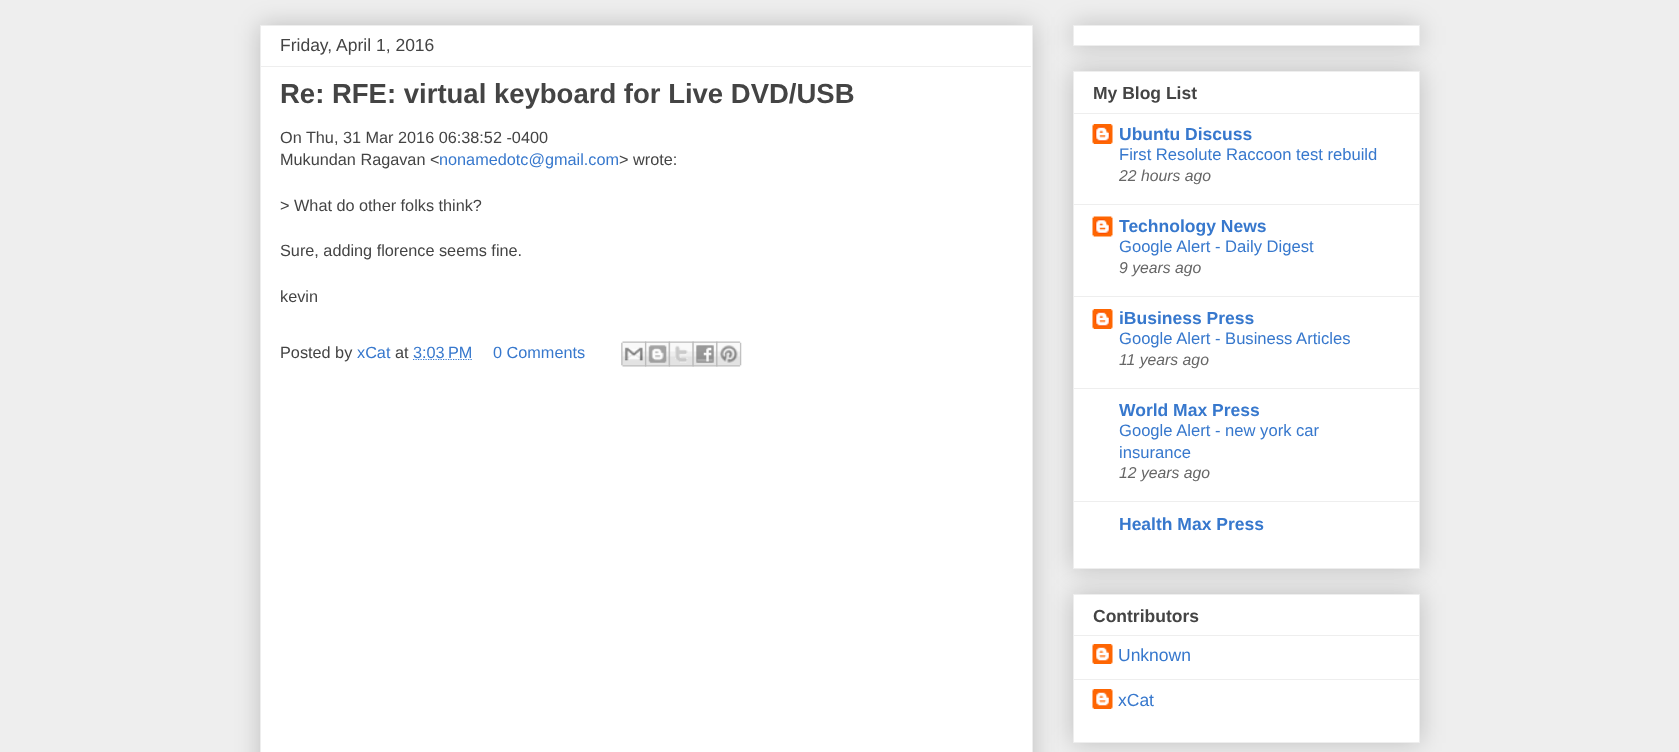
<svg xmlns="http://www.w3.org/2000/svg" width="1679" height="752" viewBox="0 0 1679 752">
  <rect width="100%" height="100%" fill="rgb(238,238,238)"/>
  <rect x="260" y="25" width="773" height="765" fill="rgba(0,0,0,0.2)" filter="blur(12.5px)"/>
  <rect x="260.5" y="25.5" width="772" height="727" fill="rgb(255,255,255)" stroke="rgb(238,238,238)"/>
  <text x="280" y="51" font-family="Liberation Sans" font-size="17.5" fill="rgb(68,68,68)">Friday, April 1, 2016</text>
  <rect x="261" y="66" width="770" height="1" fill="rgb(238,238,238)"/>
  <text x="280" y="103" font-family="Liberation Sans" font-size="27.5" font-weight="bold" fill="rgb(68,68,68)">Re: RFE: virtual keyboard for Live DVD/USB</text>
  <g font-family="Liberation Sans" font-size="16.25" fill="rgb(68,68,68)">
    <text>
      <tspan x="280" y="143">On Thu, 31 Mar 2016 06:38:52 -0400</tspan>
      <tspan x="280" y="165">Mukundan Ragavan &lt;</tspan>
    </text>
  </g>
  <text x="439" y="165" font-family="Liberation Sans" font-size="16.25" fill="rgb(55,120,205)">nonamedotc@gmail.com</text>
  <g font-family="Liberation Sans" font-size="16.25" fill="rgb(68,68,68)">
    <text x="619" y="165">&gt; wrote:</text>
    <text x="280" y="211">&gt; What do other folks think?</text>
    <text x="280" y="256">Sure, adding florence seems fine.</text>
    <text x="280" y="302">kevin</text>
    <text x="280" y="358">Posted by</text>
  </g>
  <text x="357" y="358" font-family="Liberation Sans" font-size="16.25" fill="rgb(55,120,205)">xCat</text>
  <text x="395" y="358" font-family="Liberation Sans" font-size="16.25" fill="rgb(68,68,68)">at</text>
  <path d="M413 359.5H472" fill="none" stroke="rgb(55,120,205)" stroke-width="1.2" stroke-dasharray="1.25 1.25"/>
  <g font-family="Liberation Sans" font-size="16.25" fill="rgb(55,120,205)">
    <text x="413" y="358">3:03 PM</text>
    <text x="493" y="358">0 Comments</text>
  </g>
  <image x="621" y="341" width="26" height="26" href="pic1.png"/>
  <image x="645" y="341" width="25" height="26" href="pic2.png"/>
  <image x="668" y="341" width="26" height="26" href="pic3.png"/>
  <image x="692" y="341" width="26" height="26" href="pic4.png"/>
  <image x="716" y="341" width="26" height="26" href="pic5.png"/>
  <rect x="1073" y="25" width="347" height="21" fill="rgba(0,0,0,0.2)" filter="blur(12.5px)"/>
  <rect x="1073.5" y="25.5" width="346" height="20" fill="rgb(255,255,255)" stroke="rgb(238,238,238)"/>
  <rect x="1073" y="71" width="347" height="498" fill="rgba(0,0,0,0.2)" filter="blur(12.5px)"/>
  <rect x="1073.5" y="71.5" width="346" height="497" fill="rgb(255,255,255)" stroke="rgb(238,238,238)"/>
  <text x="1093" y="99" font-family="Liberation Sans" font-size="17.5" font-weight="bold" fill="rgb(68,68,68)">My Blog List</text>
  <rect x="1074" y="113" width="345" height="1" fill="rgb(238,238,238)"/>
  <image x="1092" y="124" width="21" height="20" href="pic6.png"/>
  <text x="1119" y="140" font-family="Liberation Sans" font-size="17.5" font-weight="bold" fill="rgb(55,120,205)">Ubuntu Discuss</text>
  <text x="1119" y="160" font-family="Liberation Sans" font-size="16.6" fill="rgb(55,120,205)">First Resolute Raccoon test rebuild</text>
  <text x="1119" y="181" font-family="Liberation Sans" font-size="15.75" font-style="italic" fill="rgb(102,102,102)">22 hours ago</text>
  <rect x="1074" y="204" width="345" height="1" fill="rgb(238,238,238)"/>
  <image x="1092" y="216" width="21" height="21" href="pic7.png"/>
  <text x="1119" y="232" font-family="Liberation Sans" font-size="17.5" font-weight="bold" fill="rgb(55,120,205)">Technology News</text>
  <text x="1119" y="252" font-family="Liberation Sans" font-size="16.6" fill="rgb(55,120,205)">Google Alert - Daily Digest</text>
  <text x="1119" y="273" font-family="Liberation Sans" font-size="15.75" font-style="italic" fill="rgb(102,102,102)">9 years ago</text>
  <rect x="1074" y="296" width="345" height="1" fill="rgb(238,238,238)"/>
  <image x="1092" y="309" width="21" height="20" href="pic6.png"/>
  <text x="1119" y="324" font-family="Liberation Sans" font-size="17.5" font-weight="bold" fill="rgb(55,120,205)">iBusiness Press</text>
  <text x="1119" y="344" font-family="Liberation Sans" font-size="16.6" fill="rgb(55,120,205)">Google Alert - Business Articles</text>
  <text x="1119" y="365" font-family="Liberation Sans" font-size="15.75" font-style="italic" fill="rgb(102,102,102)">11 years ago</text>
  <rect x="1074" y="388" width="345" height="1" fill="rgb(238,238,238)"/>
  <text x="1119" y="416" font-family="Liberation Sans" font-size="17.5" font-weight="bold" fill="rgb(55,120,205)">World Max Press</text>
  <g font-family="Liberation Sans" font-size="16.6" fill="rgb(55,120,205)">
    <text>
      <tspan x="1119" y="436">Google Alert - new york car</tspan>
      <tspan x="1119" y="458">insurance</tspan>
    </text>
  </g>
  <text x="1119" y="478" font-family="Liberation Sans" font-size="15.75" font-style="italic" fill="rgb(102,102,102)">12 years ago</text>
  <rect x="1074" y="501" width="345" height="1" fill="rgb(238,238,238)"/>
  <text x="1119" y="530" font-family="Liberation Sans" font-size="17.5" font-weight="bold" fill="rgb(55,120,205)">Health Max Press</text>
  <rect x="1073" y="594" width="347" height="149" fill="rgba(0,0,0,0.2)" filter="blur(12.5px)"/>
  <rect x="1073.5" y="594.5" width="346" height="148" fill="rgb(255,255,255)" stroke="rgb(238,238,238)"/>
  <text x="1093" y="622" font-family="Liberation Sans" font-size="17.5" font-weight="bold" fill="rgb(68,68,68)">Contributors</text>
  <rect x="1074" y="635" width="345" height="1" fill="rgb(238,238,238)"/>
  <image x="1092" y="644" width="21" height="20" href="pic8.png"/>
  <text x="1118" y="661" font-family="Liberation Sans" font-size="17.5" fill="rgb(55,120,205)">Unknown</text>
  <rect x="1074" y="679" width="345" height="1" fill="rgb(238,238,238)"/>
  <image x="1092" y="689" width="21" height="20" href="pic8.png"/>
  <text x="1118" y="706" font-family="Liberation Sans" font-size="17.5" fill="rgb(55,120,205)">xCat</text>
</svg>
